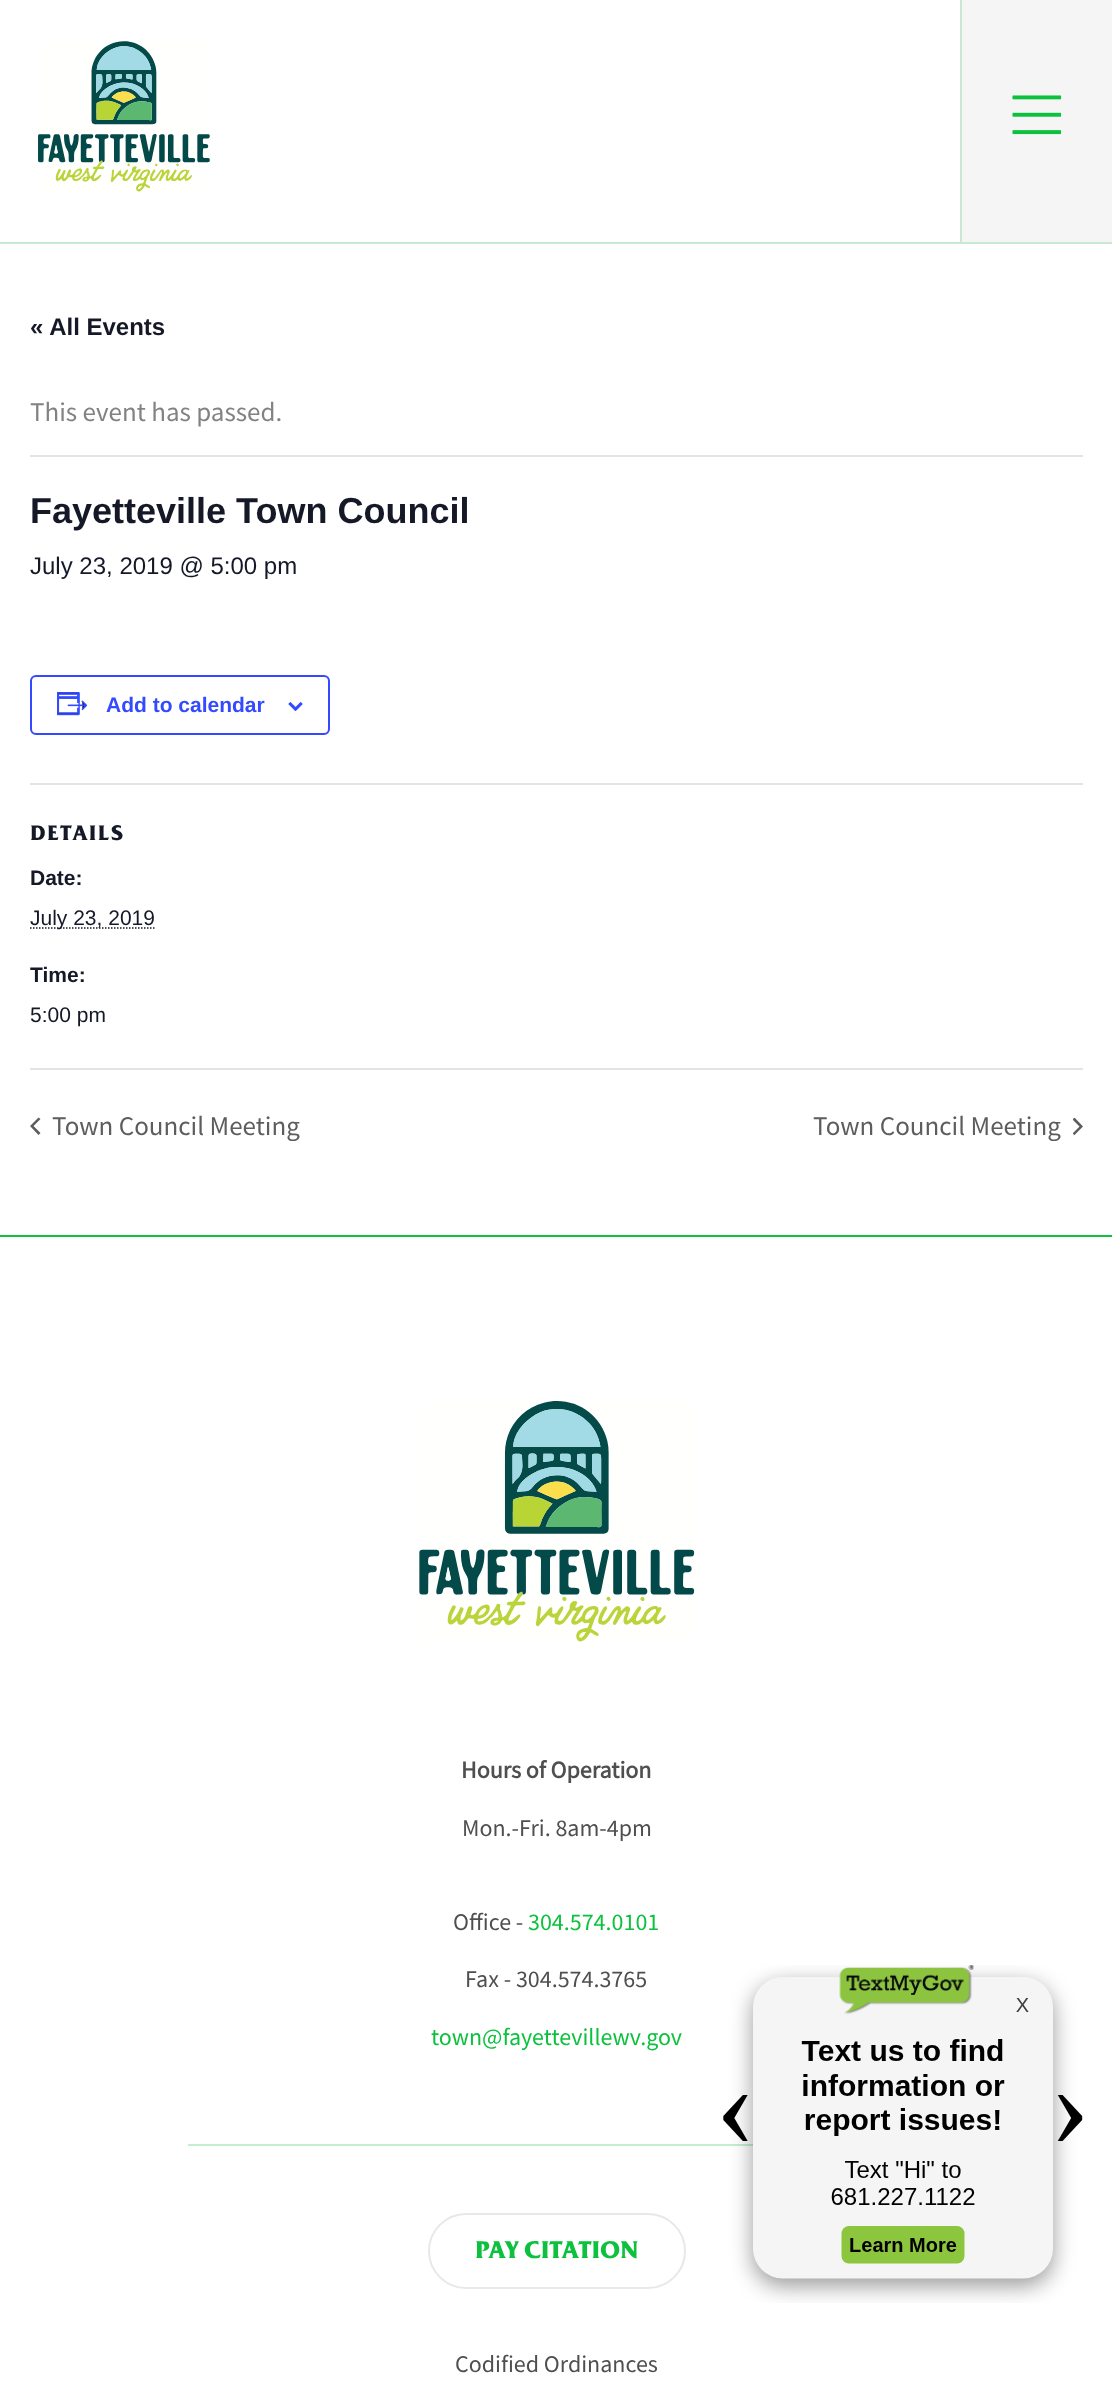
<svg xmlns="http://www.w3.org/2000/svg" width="1112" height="2398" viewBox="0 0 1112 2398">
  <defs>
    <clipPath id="clip1"><rect x="1073" y="1118" width="10" height="18"/></clipPath>
  </defs>
  <rect width="100%" height="100%" fill="rgb(255,255,255)"/>
  <rect x="0" y="242" width="1112" height="2" fill="rgb(201,232,210)"/>
  <image x="38" y="41" width="172" height="151" href="pic1.png"/>
  <rect x="962" y="0" width="150" height="242" fill="rgb(245,245,245)"/>
  <rect x="960" y="0" width="2" height="242" fill="rgb(201,232,210)"/>
  <image x="1012" y="95" width="50" height="40" href="pic2.png"/>
  <text x="30" y="335" font-family="Liberation Sans" font-size="24" font-weight="bold" fill="rgb(20,24,39)">« All Events</text>
  <rect x="30" y="455" width="1053" height="2" fill="rgb(228,228,228)"/>
  <text x="30" y="421" font-family="Source Sans Pro" font-size="27" fill="rgb(130,130,130)">This event has passed.</text>
  <text x="30" y="523" font-family="Liberation Sans" font-size="36" font-weight="bold" fill="rgb(20,24,39)">Fayetteville Town Council</text>
  <text x="30" y="574" font-family="Liberation Sans" font-size="24" fill="rgb(20,24,39)">July 23, 2019 @ 5:00 pm</text>
  <rect x="31" y="676" width="298" height="58" rx="5" fill="none" stroke="rgb(51,74,255)" stroke-width="2"/>
  <image x="57" y="692" width="31" height="24" href="pic3.png"/>
  <text x="106" y="712" font-family="Liberation Sans" font-size="21" font-weight="bold" fill="rgb(51,74,255)">Add to calendar</text>
  <image x="288" y="702" width="15" height="9" href="pic4.png"/>
  <rect x="30" y="783" width="1053" height="2" fill="rgb(228,228,228)"/>
  <text x="30" y="840" font-family="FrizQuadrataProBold" font-size="21" font-weight="bold" letter-spacing="1.5" fill="rgb(20,24,39)">DETAILS</text>
  <text x="30" y="885" font-family="Liberation Sans" font-size="21" font-weight="bold" fill="rgb(20,24,39)">Date:</text>
  <path d="M30 928H155" fill="none" stroke="rgb(20,24,39)" stroke-width="1.5" stroke-dasharray="1.5 1.5"/>
  <text x="30" y="925" font-family="Liberation Sans" font-size="21" fill="rgb(20,24,39)">July 23, 2019</text>
  <text x="30" y="982" font-family="Liberation Sans" font-size="21" font-weight="bold" fill="rgb(20,24,39)">Time:</text>
  <text x="30" y="1022" font-family="Liberation Sans" font-size="21" fill="rgb(20,24,39)">5:00 pm</text>
  <rect x="30" y="1068" width="1053" height="2" fill="rgb(228,228,228)"/>
  <path d="M40.5 1133L38.5 1135L30 1126L38.5 1117.5L40.5 1119L33.5 1126Z" fill="rgb(93,93,93)"/>
  <g font-family="Source Sans Pro" font-size="27" fill="rgb(93,93,93)">
    <text x="52" y="1135">Town Council Meeting</text>
    <text x="813" y="1135">Town Council Meeting</text>
  </g>
  <g clip-path="url(#clip1)">
    <path d="M1072.5 1119.5L1074.5 1117.5L1083 1126.5L1074.5 1135L1072.5 1133.5L1079.5 1126.5Z" fill="rgb(93,93,93)"/>
  </g>
  <rect x="0" y="1235" width="1112" height="2" fill="rgb(12,193,61)"/>
  <image x="419" y="1401" width="276" height="241" href="pic5.png"/>
  <text x="461" y="1778" font-family="Source Sans Pro" font-size="24" font-weight="bold" fill="rgb(79,79,79)">Hours of Operation</text>
  <g font-family="Source Sans Pro" font-size="24" fill="rgb(79,79,79)">
    <text x="462" y="1836">Mon.-Fri. 8am-4pm</text>
    <text x="453" y="1930">Office -</text>
  </g>
  <text x="528" y="1930" font-family="Source Sans Pro" font-size="24" fill="rgb(12,193,61)">304.574.0101</text>
  <text x="465" y="1987" font-family="Source Sans Pro" font-size="24" fill="rgb(79,79,79)">Fax - 304.574.3765</text>
  <text x="431" y="2045" font-family="Source Sans Pro" font-size="24" fill="rgb(12,193,61)">town@fayettevillewv.gov</text>
  <rect x="188" y="2144" width="565" height="2" fill="rgb(194,239,206)"/>
  <rect x="429" y="2214" width="256" height="74" rx="37" fill="none" stroke="rgb(232,232,232)" stroke-width="2"/>
  <text x="475" y="2258" font-family="FrizQuadrataProBold" font-size="24" font-weight="bold" fill="rgb(12,193,61)">PAY CITATION</text>
  <text x="455" y="2372" font-family="Source Sans Pro" font-size="24" fill="rgb(79,79,79)">Codified Ordinances</text>
  <image x="723" y="1965" width="360" height="338" href="pic6.png"/>
</svg>
